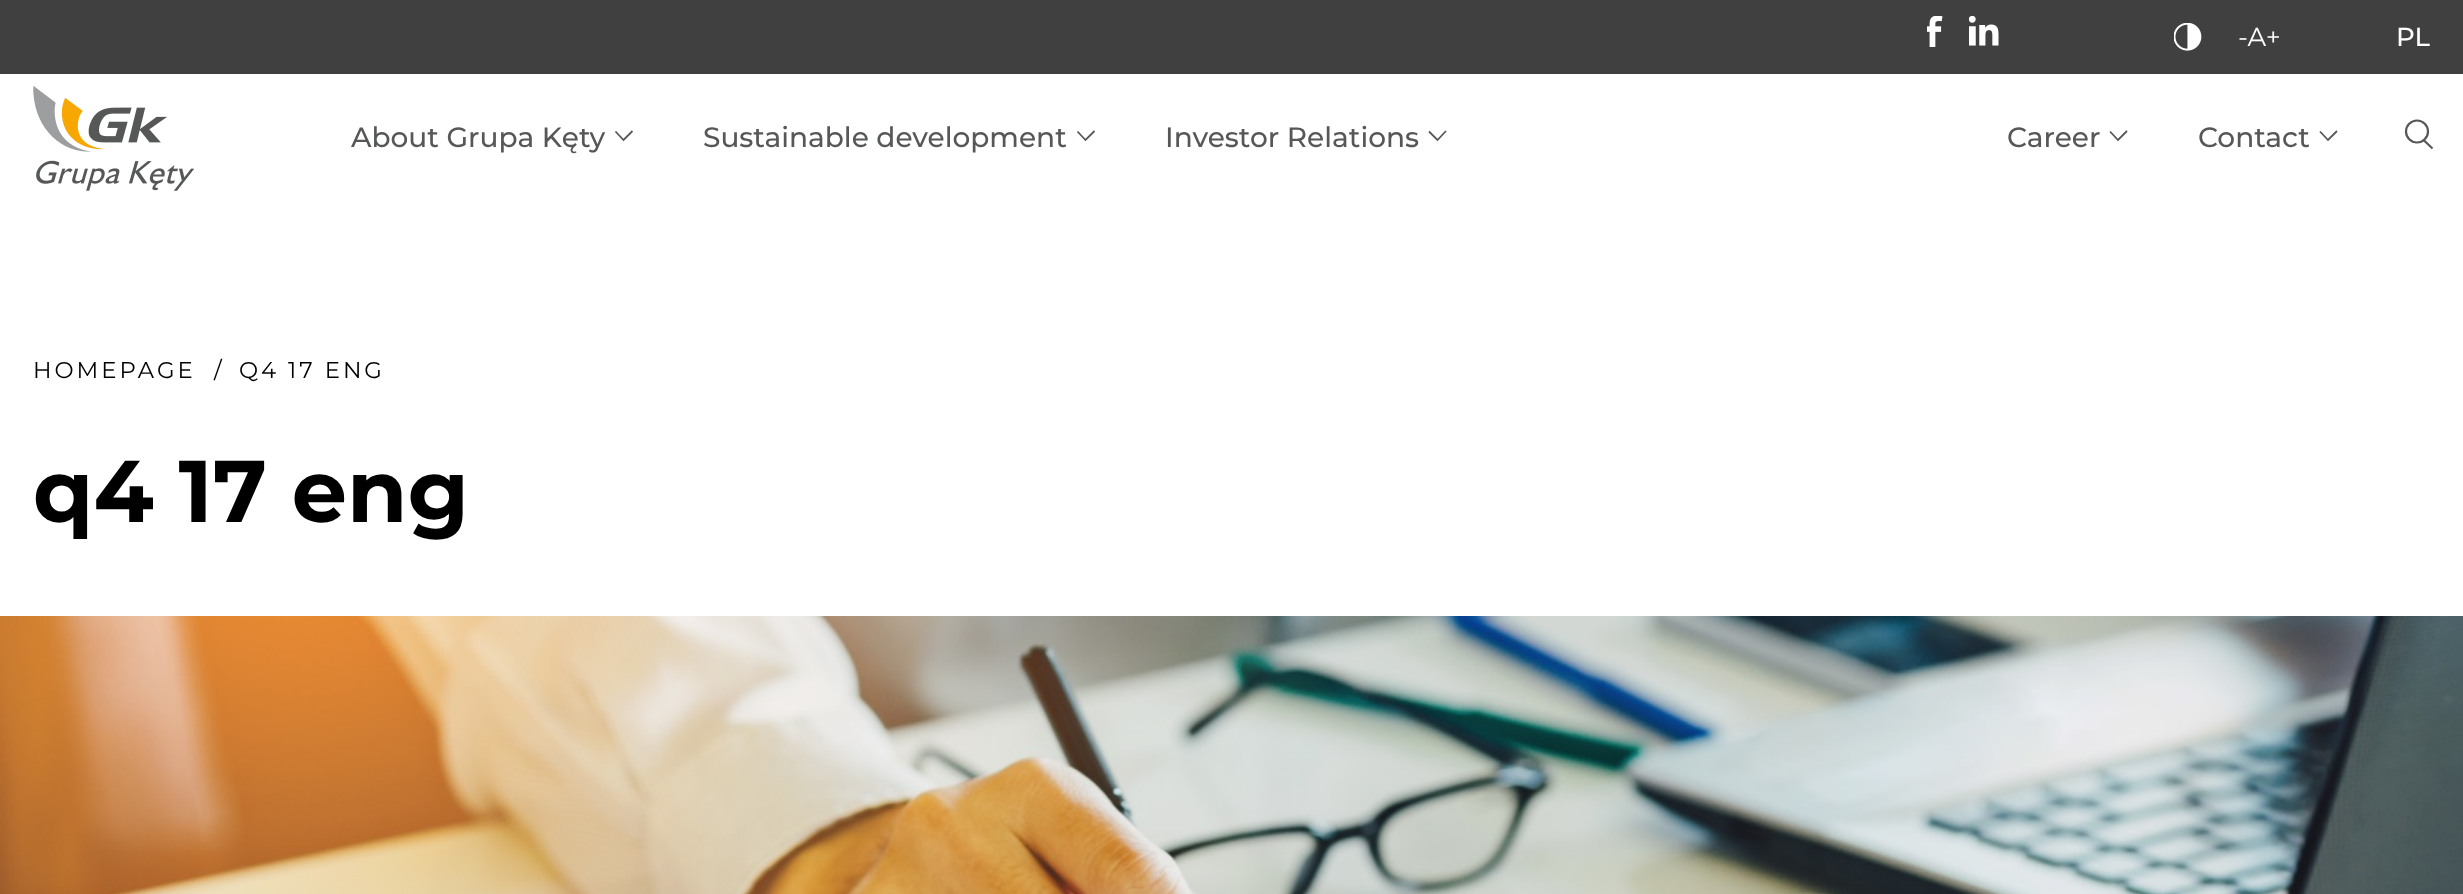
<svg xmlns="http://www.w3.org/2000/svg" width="2463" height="894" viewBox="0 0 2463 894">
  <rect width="100%" height="100%" fill="rgb(255,255,255)"/>
  <rect x="0" y="0" width="2463" height="74" fill="rgb(64,64,64)"/>
  <image x="1927" y="16" width="16" height="31" href="pic1.png"/>
  <image x="1969" y="16" width="30" height="30" href="pic2.png"/>
  <image x="2174" y="23" width="28" height="28" href="pic3.png"/>
  <text x="2238" y="46" font-family="Montserrat" font-size="26" fill="rgb(255,255,255)">-A+</text>
  <text x="2396" y="46" font-family="Montserrat" font-size="26" font-weight="500" fill="rgb(255,255,255)">PL</text>
  <image x="33" y="86" width="161" height="105" href="pic4.png"/>
  <text x="351" y="147" font-family="Montserrat" font-size="28" font-weight="500" fill="rgb(86,87,87)">About Grupa Kęty</text>
  <path d="M615.5 131.5L623.5 140L632.5 131" fill="none" stroke="rgb(86,87,87)" stroke-width="1.8"/>
  <text x="703" y="147" font-family="Montserrat" font-size="28" font-weight="500" fill="rgb(86,87,87)">Sustainable development</text>
  <path d="M1077.5 131.5L1085.5 140L1094.5 131" fill="none" stroke="rgb(86,87,87)" stroke-width="1.8"/>
  <text x="1165" y="147" font-family="Montserrat" font-size="28" font-weight="500" fill="rgb(86,87,87)">Investor Relations</text>
  <path d="M1429 131.5L1437.5 140L1446 131" fill="none" stroke="rgb(86,87,87)" stroke-width="1.8"/>
  <text x="2007" y="147" font-family="Montserrat" font-size="28" font-weight="500" fill="rgb(86,87,87)">Career</text>
  <path d="M2110 131.5L2118 140L2127 131" fill="none" stroke="rgb(86,87,87)" stroke-width="1.8"/>
  <text x="2198" y="147" font-family="Montserrat" font-size="28" font-weight="500" fill="rgb(86,87,87)">Contact</text>
  <path d="M2320 131.5L2328 140L2337 131" fill="none" stroke="rgb(86,87,87)" stroke-width="1.8"/>
  <circle cx="2417" cy="131.5" r="11" fill="none" stroke="rgb(86,87,87)" stroke-width="2.2"/>
  <path d="M2423.5 140L2432.5 148.5" fill="none" stroke="rgb(86,87,87)" stroke-width="2.2"/>
  <g font-family="Montserrat" font-size="22.75" letter-spacing="3" fill="rgb(0,0,0)">
    <text x="33" y="378">HOMEPAGE</text>
    <text x="214" y="378">/</text>
    <text x="239" y="378">Q4 17 ENG</text>
  </g>
  <text x="33" y="522" font-family="Montserrat" font-size="87.5" font-weight="bold" fill="rgb(0,0,0)">q4 17 eng</text>
  <image x="0" y="616" width="2463" height="278" href="pic5.png"/>
</svg>
